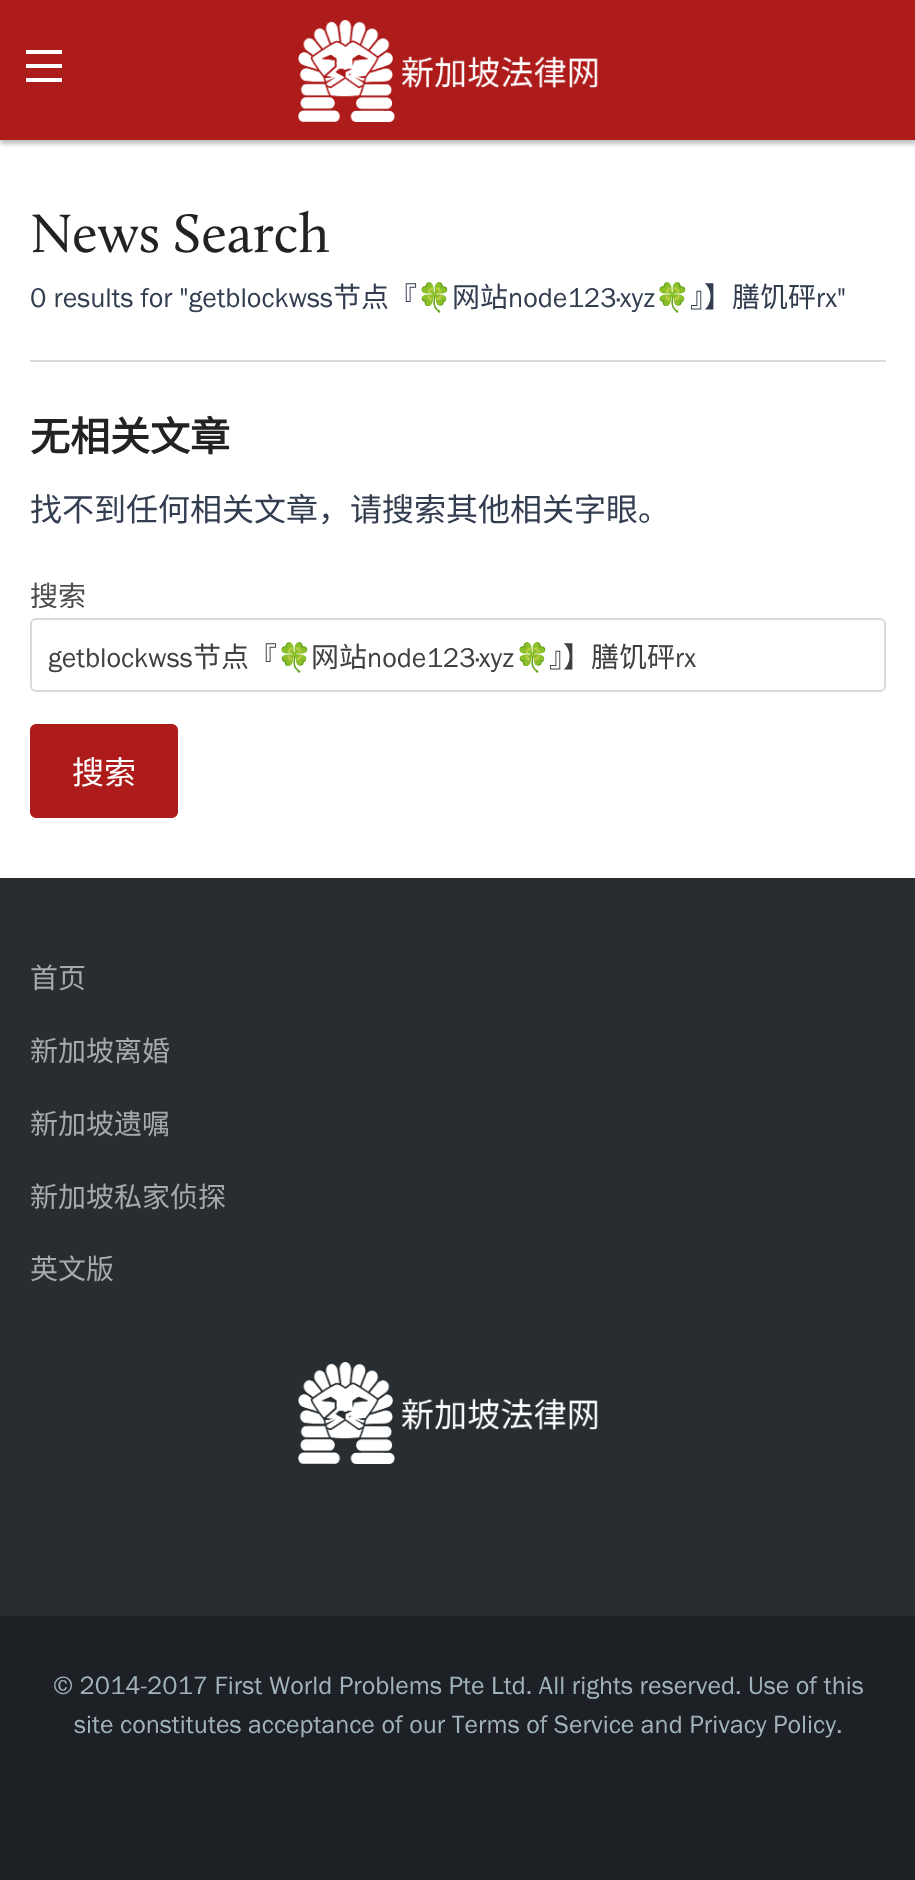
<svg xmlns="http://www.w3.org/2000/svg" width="915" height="1880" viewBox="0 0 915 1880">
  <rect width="100%" height="100%" fill="rgb(29,33,37)"/>
  <rect x="0" y="140" width="915" height="738" fill="rgb(255,255,255)"/>
  <rect x="0" y="4" width="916" height="140" fill="rgba(0,0,0,0.25)" filter="blur(2px)"/>
  <rect x="0" y="0" width="915" height="140" fill="rgb(174,27,27)"/>
  <rect x="26" y="78" width="36" height="4" fill="rgb(255,255,255)"/>
  <rect x="26" y="64" width="36" height="4" fill="rgb(255,255,255)"/>
  <rect x="26" y="50" width="36" height="4" fill="rgb(255,255,255)"/>
  <image x="298" y="20" width="300" height="102" href="pic1.png"/>
  <rect x="30" y="360" width="856" height="2" fill="rgb(215,218,223)"/>
  <text x="30" y="252" font-family="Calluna" font-size="56" fill="rgb(34,34,34)">News Search</text>
  <text x="30" y="307" font-family="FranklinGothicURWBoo" font-size="28" fill="rgb(50,61,80)">0 results for "getblockwss</text>
  <text x="333" y="307" font-family="Noto Sans CJK SC" font-size="28" fill="rgb(50,61,80)">节点『</text>
  <text x="417" y="307" font-family="Noto Color Emoji" font-size="28" fill="rgb(50,61,80)">🍀</text>
  <text x="452" y="307" font-family="Noto Sans CJK SC" font-size="28" fill="rgb(50,61,80)">网站</text>
  <text x="508" y="307" font-family="FranklinGothicURWBoo" font-size="28" fill="rgb(50,61,80)">node123·xyz</text>
  <text x="655" y="307" font-family="Noto Color Emoji" font-size="28" fill="rgb(50,61,80)">🍀</text>
  <text x="690" y="307" font-family="Noto Sans CJK SC" font-size="28" fill="rgb(50,61,80)">』】膳饥砰</text>
  <text x="816" y="307" font-family="FranklinGothicURWBoo" font-size="28" fill="rgb(50,61,80)">rx"</text>
  <text x="30" y="451" font-family="Noto Sans CJK SC" font-size="40" font-weight="bold" fill="rgb(34,34,34)">无相关文章</text>
  <text x="30" y="521" font-family="Noto Sans CJK SC" font-size="32" fill="rgb(50,61,80)">找不到任何相关文章，请搜索其他相关字眼。</text>
  <text x="30" y="606" font-family="Noto Sans CJK SC" font-size="28" fill="rgb(77,77,77)">搜索</text>
  <rect x="31" y="619" width="854" height="72" rx="5" fill="none" stroke="rgb(215,218,223)" stroke-width="2"/>
  <text x="48" y="667" font-family="FranklinGothicURWBoo" font-size="28" fill="rgb(64,64,64)">getblockwss</text>
  <text x="193" y="667" font-family="Noto Sans CJK SC" font-size="28" fill="rgb(64,64,64)">节点『</text>
  <text x="277" y="667" font-family="Noto Color Emoji" font-size="28" fill="rgb(64,64,64)">🍀</text>
  <text x="311" y="667" font-family="Noto Sans CJK SC" font-size="28" fill="rgb(64,64,64)">网站</text>
  <text x="367" y="667" font-family="FranklinGothicURWBoo" font-size="28" fill="rgb(64,64,64)">node123·xyz</text>
  <text x="515" y="667" font-family="Noto Color Emoji" font-size="28" fill="rgb(64,64,64)">🍀</text>
  <text x="549" y="667" font-family="Noto Sans CJK SC" font-size="28" fill="rgb(64,64,64)">』】膳饥砰</text>
  <text x="675" y="667" font-family="FranklinGothicURWBoo" font-size="28" fill="rgb(64,64,64)">rx</text>
  <rect x="31" y="725" width="146" height="92" rx="5" fill="rgb(174,27,27)" stroke="rgb(174,27,27)" stroke-width="2"/>
  <text x="72" y="784" font-family="Noto Sans CJK SC" font-size="32" fill="rgb(255,255,255)">搜索</text>
  <rect x="0" y="878" width="915" height="738" fill="rgb(39,45,49)"/>
  <g font-family="Noto Sans CJK SC" font-size="28" fill="rgb(167,170,171)">
    <text x="30" y="988">首页</text>
    <text x="30" y="1061">新加坡离婚</text>
    <text x="30" y="1134">新加坡遗嘱</text>
    <text x="30" y="1207">新加坡私家侦探</text>
    <text x="30" y="1279">英文版</text>
  </g>
  <image x="298" y="1362" width="300" height="102" href="pic2.png"/>
  <g font-family="FranklinGothicURWBoo" font-size="26" fill="rgb(161,179,186)">
    <text x="53" y="1694">© 2014-2017 First World Problems Pte Ltd. All rights reserved. Use of this</text>
    <text x="74" y="1733">site constitutes acceptance of our Terms of Service and Privacy Policy.</text>
  </g>
</svg>
